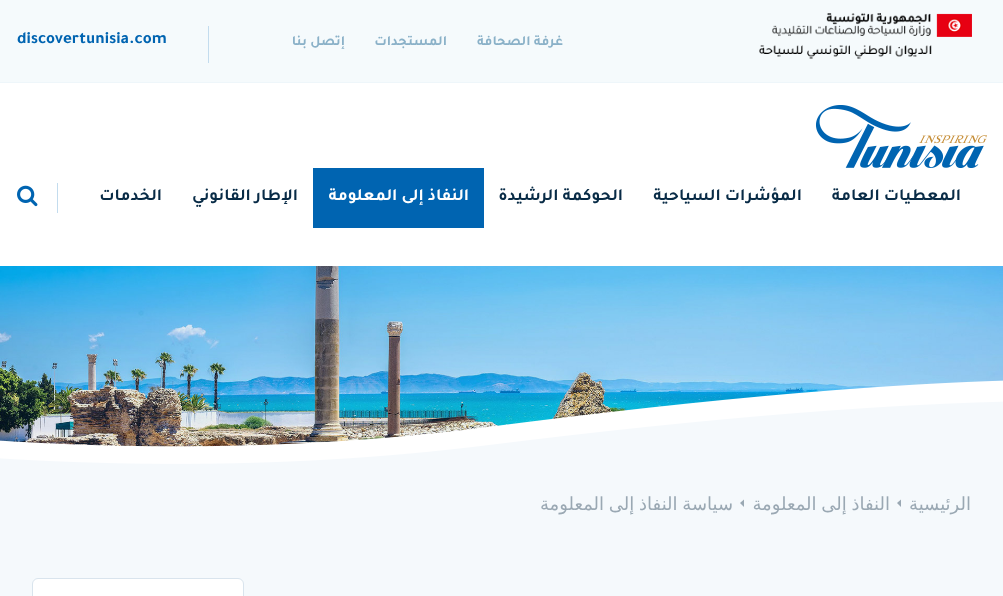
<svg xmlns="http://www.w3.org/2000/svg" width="1003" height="596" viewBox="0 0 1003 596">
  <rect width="100%" height="100%" fill="rgb(255,255,255)"/>
  <rect x="0" y="0" width="1003" height="82" fill="rgb(245,250,252)"/>
  <rect x="0" y="82" width="1003" height="1" fill="rgb(238,246,250)"/>
  <image x="759" y="13" width="213" height="46" href="pic1.png"/>
  <g font-family="Tajawal" font-size="14" font-weight="bold" direction="rtl" fill="rgb(138,177,200)">
    <text x="563" y="45">غرفة الصحافة</text>
    <text x="447" y="45">المستجدات</text>
    <text x="345" y="45">إتصل بنا</text>
  </g>
  <rect x="208" y="26" width="1" height="37" fill="rgb(195,220,238)"/>
  <text x="17" y="43" font-family="Tajawal" font-size="17" font-weight="bold" fill="rgb(0,100,177)">discovertunisia.com</text>
  <image x="816" y="105" width="171" height="63" href="pic2.png"/>
  <g font-family="Tajawal" font-size="17" font-weight="bold" direction="rtl" fill="rgb(8,43,70)">
    <text x="961" y="200">المعطيات العامة</text>
    <text x="802" y="200">المؤشرات السياحية</text>
    <text x="623" y="200">الحوكمة الرشيدة</text>
  </g>
  <rect x="313" y="168" width="171" height="60" fill="rgb(0,100,177)"/>
  <text x="469" y="200" font-family="Tajawal" font-size="17" font-weight="bold" direction="rtl" fill="rgb(255,255,255)">النفاذ إلى المعلومة</text>
  <g font-family="Tajawal" font-size="17" font-weight="bold" direction="rtl" fill="rgb(8,43,70)">
    <text x="298" y="200">الإطار القانوني</text>
    <text x="162" y="200">الخدمات</text>
  </g>
  <rect x="57" y="183" width="1" height="30" fill="rgb(195,220,238)"/>
  <image x="17" y="185" width="21" height="22" href="pic3.png"/>
  <image x="0" y="266" width="1003" height="181" href="pic4.png"/>
  <image x="0" y="380" width="1003" height="94" href="pic5.png"/>
  <rect x="0" y="474" width="1003" height="122" fill="rgb(245,249,252)"/>
  <text x="971" y="510" font-family="DejaVu Sans" font-size="18" direction="rtl" fill="rgb(154,168,179)">الرئيسية</text>
  <path d="M901 499.5V507L897 503Z" fill="rgb(154,168,179)"/>
  <text x="890" y="510" word-spacing="-1" font-family="DejaVu Sans" font-size="18" direction="rtl" fill="rgb(154,168,179)">النفاذ إلى المعلومة</text>
  <path d="M744 499.5V507L740 503Z" fill="rgb(154,168,179)"/>
  <text x="733" y="510" word-spacing="-1" font-family="DejaVu Sans" font-size="18" direction="rtl" fill="rgb(154,168,179)">سياسة النفاذ إلى المعلومة</text>
  <rect x="32.5" y="578.5" width="211" height="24" rx="5.5" fill="rgb(255,255,255)" stroke="rgb(217,228,237)"/>
</svg>
